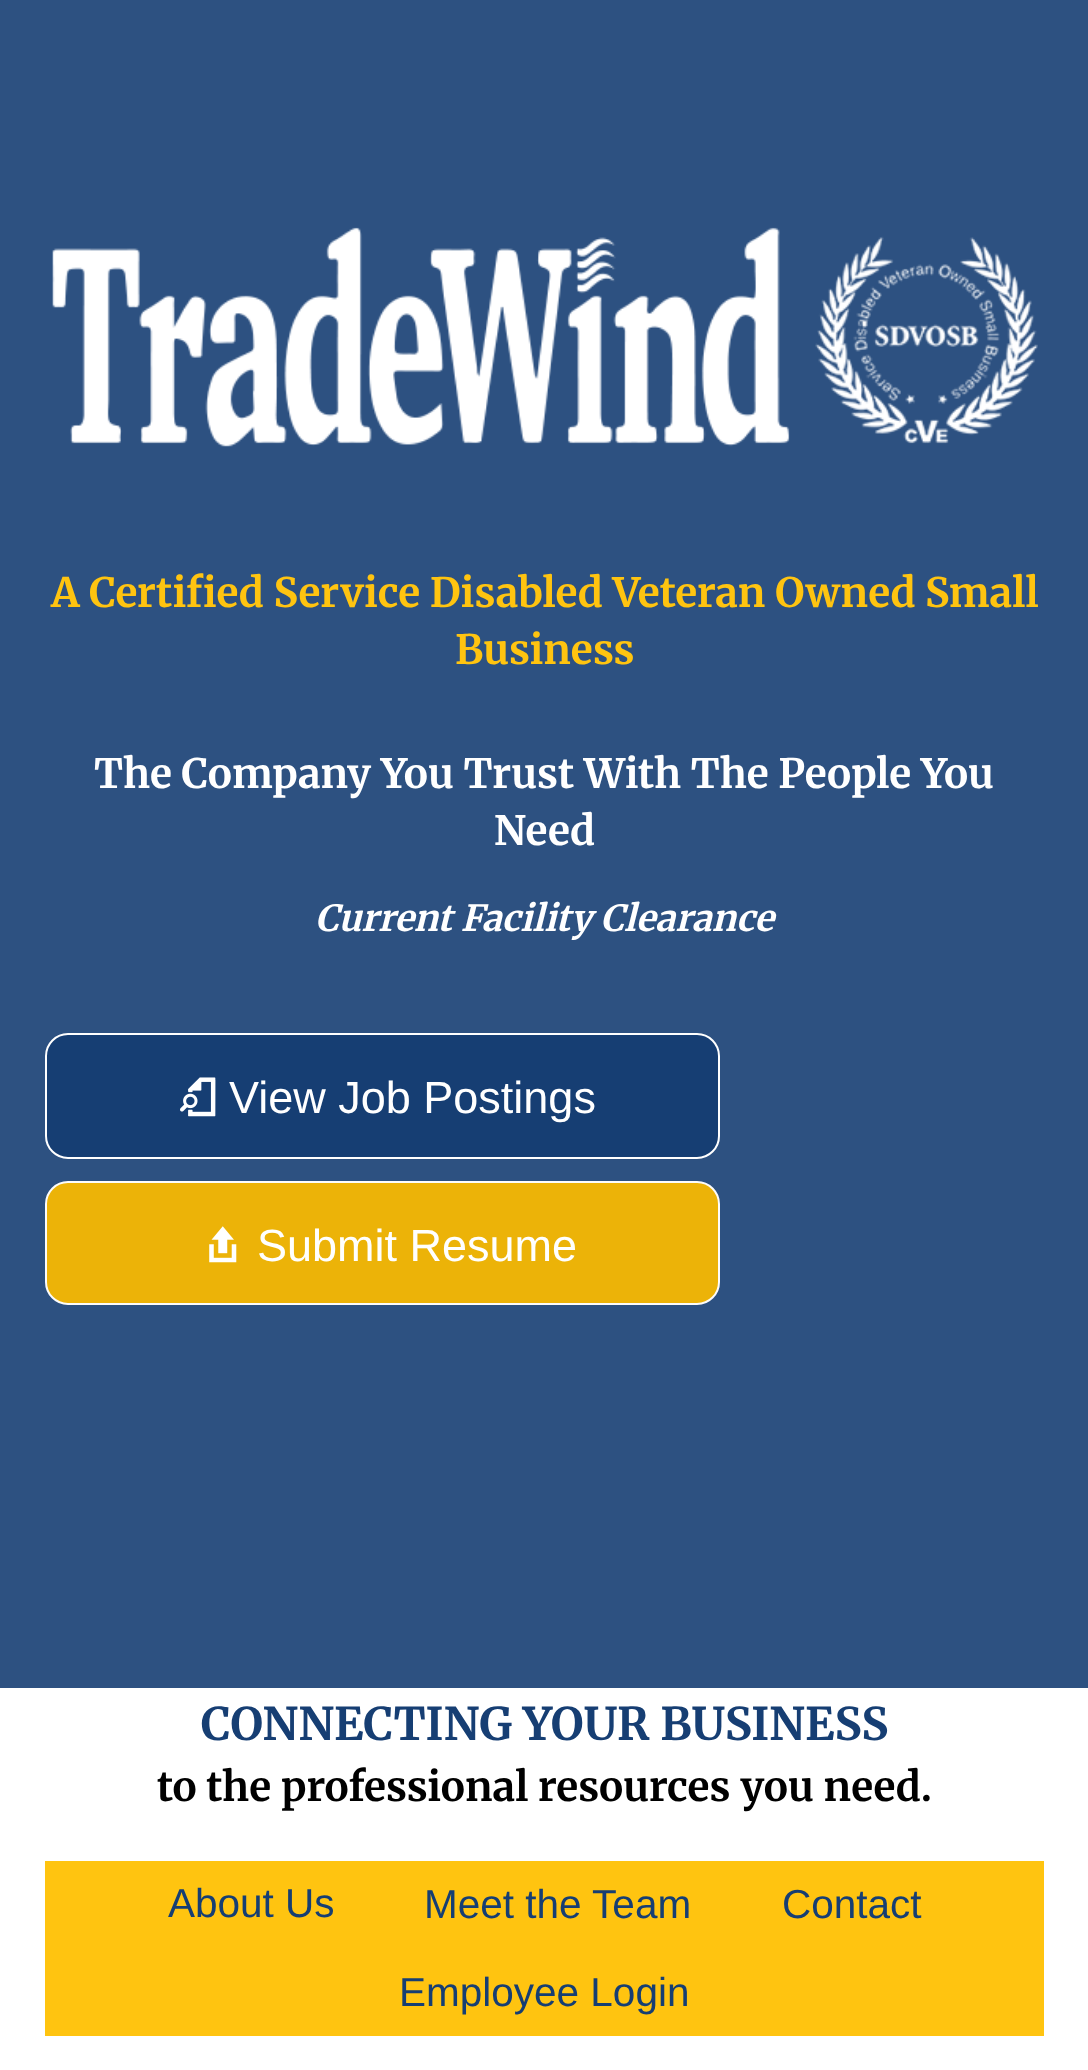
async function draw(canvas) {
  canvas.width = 1088
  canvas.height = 2070
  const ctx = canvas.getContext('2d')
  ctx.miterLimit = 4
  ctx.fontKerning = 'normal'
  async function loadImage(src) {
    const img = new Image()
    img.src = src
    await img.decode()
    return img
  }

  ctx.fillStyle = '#fff'
  ctx.fillRect(0, 0, 1088, 2070)
  ctx.fillStyle = '#2d5181'
  ctx.fillRect(0, 0, 1088, 1688)
  ctx.drawImage(await loadImage('image0.png'), 52, 227, 986, 220)
  ctx.font = '300 40.5px Merriweather'
  ctx.fillStyle = '#ffc410'
  ctx.fillText('A Certified Service Disabled Veteran Owned Small', 51, 607)
  ctx.fillText('Business', 455, 664)
  ctx.fillStyle = '#fff'
  ctx.fillText('The Company You Trust With The People You', 94, 788)
  ctx.fillText('Need', 494, 845)
  ctx.font = 'italic 300 36px Merriweather'
  ctx.fillText('Current Facility Clearance', 315, 931)
  ctx.fillStyle = '#163e73'
  ctx.beginPath()
  ctx.roundRect(46, 1034, 673, 124, 22)
  ctx.fill()
  ctx.strokeStyle = '#fff'
  ctx.lineWidth = 2
  ctx.stroke()
  ctx.drawImage(await loadImage('image1.png'), 180, 1077, 36, 40)
  ctx.font = '45px Liberation Sans'
  ctx.fillStyle = '#fff'
  ctx.fillText('View Job Postings', 229, 1113)
  ctx.fillStyle = '#ecb308'
  ctx.beginPath()
  ctx.roundRect(46, 1182, 673, 122, 22)
  ctx.fill()
  ctx.strokeStyle = '#fcfcfc'
  ctx.stroke()
  ctx.drawImage(await loadImage('image2.png'), 209, 1226, 28, 37)
  ctx.fillStyle = '#fff'
  ctx.fillText('Submit Resume', 257, 1261)
  ctx.font = '300 45px Merriweather'
  ctx.fillStyle = '#163e73'
  ctx.fillText('CONNECTING YOUR BUSINESS', 201, 1740)
  ctx.font = '300 40.5px Merriweather'
  ctx.fillStyle = '#000'
  ctx.fillText('to the professional resources you need.', 157, 1801)
  ctx.fillStyle = '#ffc410'
  ctx.fillRect(45, 1861, 999, 175)
  ctx.font = '40.5px Liberation Sans'
  ctx.fillStyle = '#163e73'
  ctx.fillText('About Us', 168, 1917)
  ctx.fillText('Meet the Team', 424, 1918)
  ctx.fillText('Contact', 782, 1918)
  ctx.fillText('Employee Login', 399, 2006)
}

draw(document.querySelector('canvas'))
